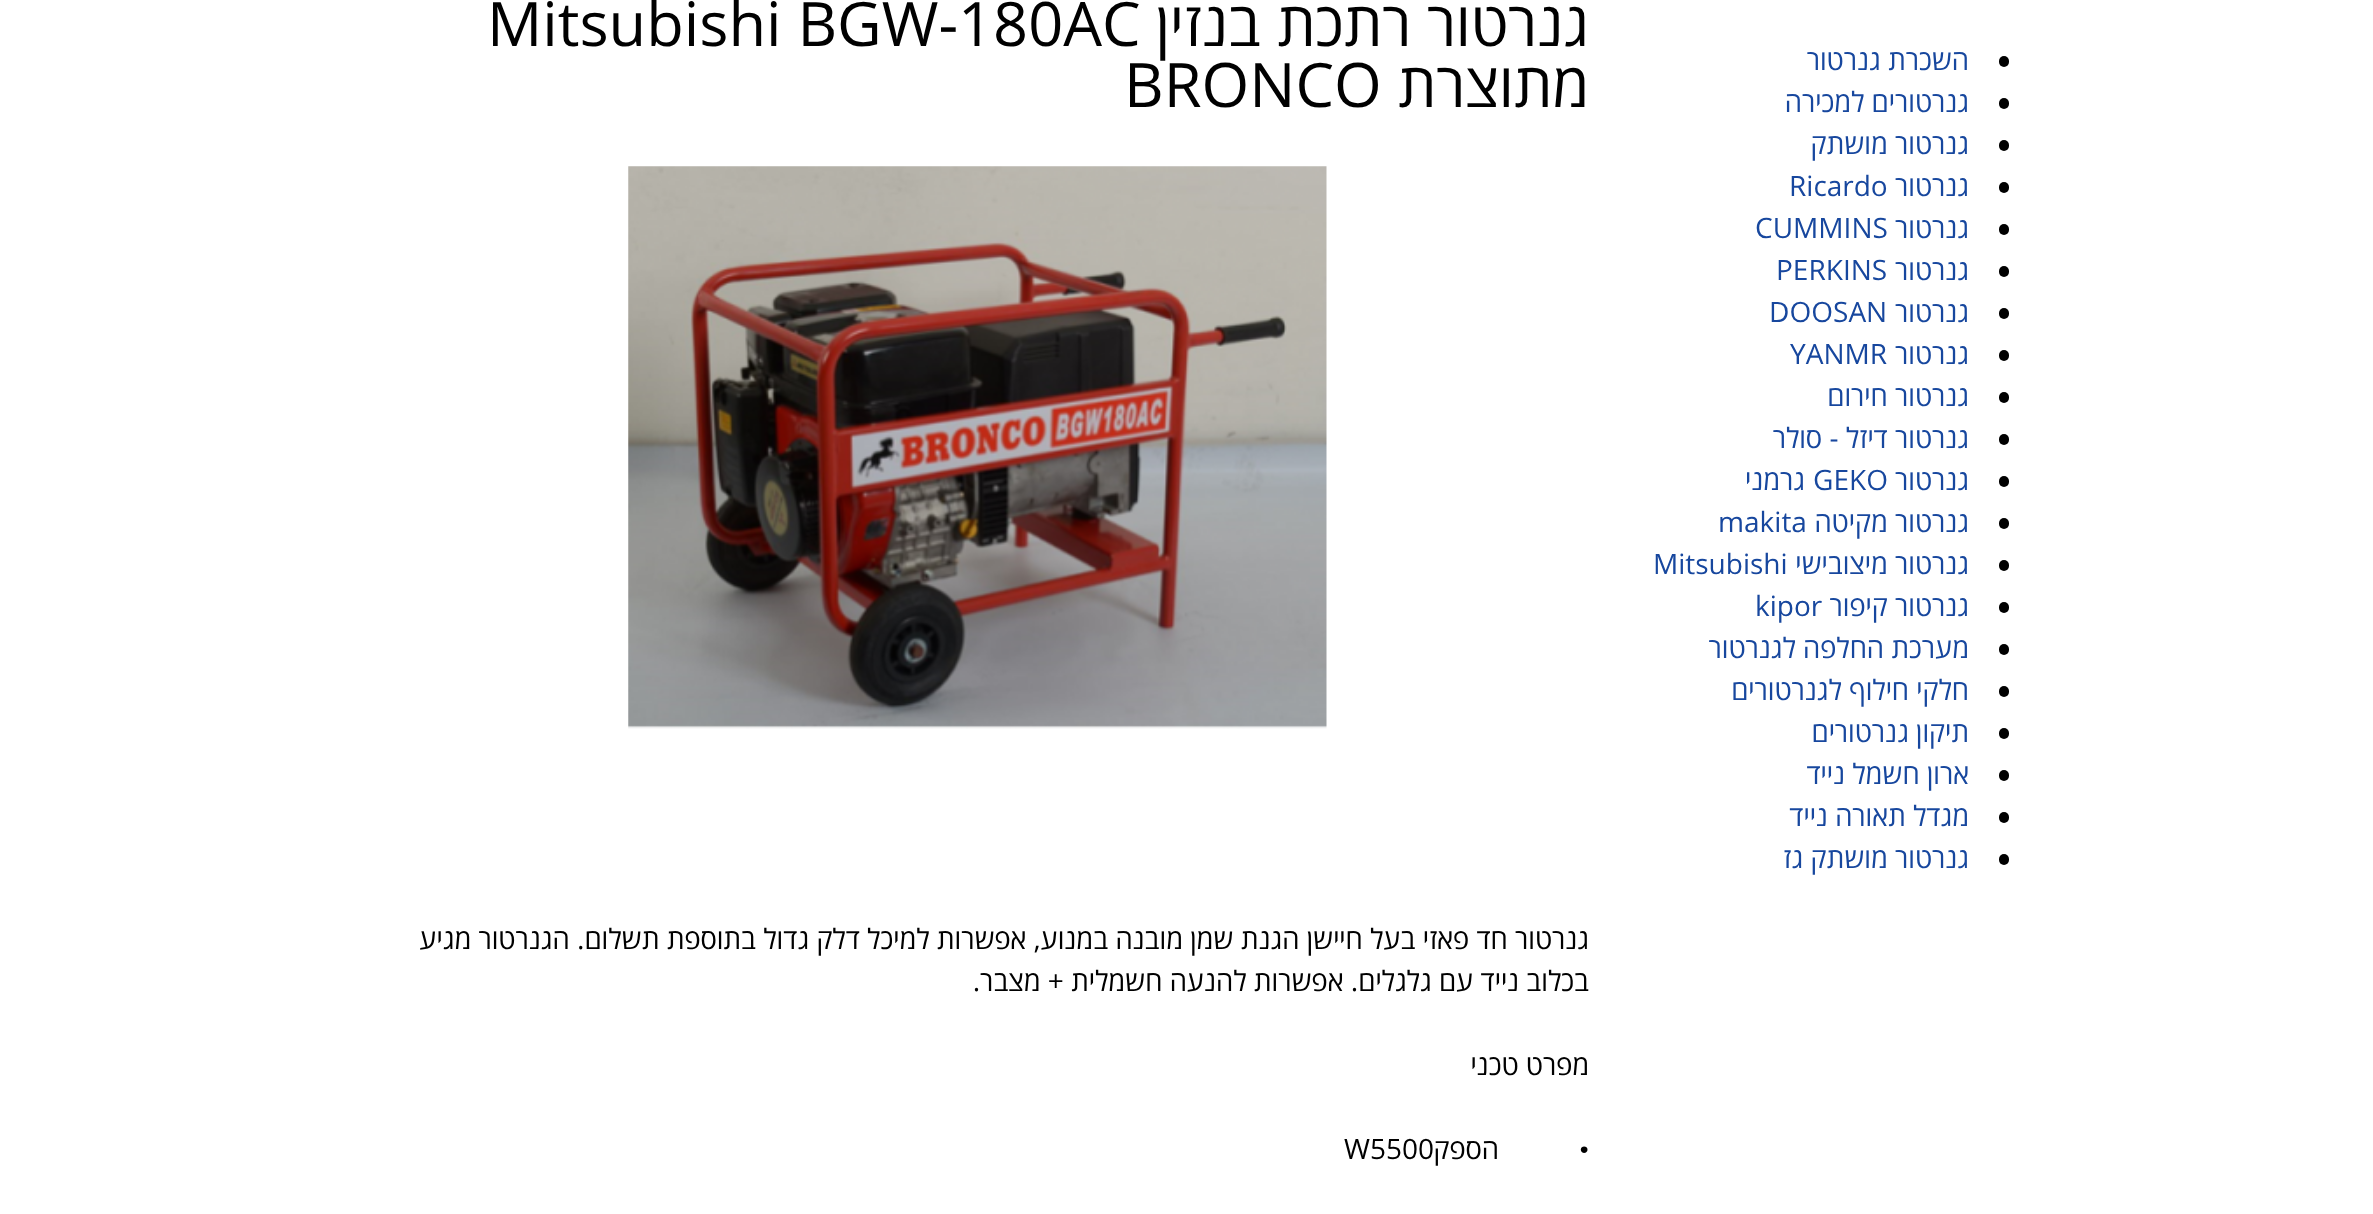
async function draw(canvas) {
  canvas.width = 2373
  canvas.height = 1214
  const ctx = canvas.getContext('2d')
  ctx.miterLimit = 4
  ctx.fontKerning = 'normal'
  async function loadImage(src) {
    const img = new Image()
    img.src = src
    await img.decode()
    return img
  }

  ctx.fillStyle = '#fff'
  ctx.fillRect(0, 0, 2373, 1214)
  ctx.fillStyle = '#000'
  ctx.beginPath()
  ctx.roundRect(1999, 56, 10, 11, 5)
  ctx.fill()
  ctx.direction = 'rtl'
  ctx.font = '28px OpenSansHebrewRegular'
  ctx.fillStyle = '#17479e'
  ctx.fillText('השכרת גנרטור', 1969, 70)
  ctx.fillStyle = '#000'
  ctx.beginPath()
  ctx.roundRect(1999, 98, 10, 11, 5)
  ctx.fill()
  ctx.fillStyle = '#17479e'
  ctx.fillText('גנרטורים למכירה', 1969, 112)
  ctx.fillStyle = '#000'
  ctx.beginPath()
  ctx.roundRect(1999, 140, 10, 11, 5)
  ctx.fill()
  ctx.fillStyle = '#17479e'
  ctx.fillText('גנרטור מושתק', 1969, 154)
  ctx.fillStyle = '#000'
  ctx.beginPath()
  ctx.roundRect(1999, 182, 10, 11, 5)
  ctx.fill()
  ctx.fillStyle = '#17479e'
  ctx.fillText('גנרטור', 1969, 196)
  ctx.direction = 'ltr'
  ctx.fillText('Ricardo', 1789, 196)
  ctx.fillStyle = '#000'
  ctx.beginPath()
  ctx.roundRect(1999, 224, 10, 11, 5)
  ctx.fill()
  ctx.direction = 'rtl'
  ctx.fillStyle = '#17479e'
  ctx.fillText('גנרטור', 1969, 238)
  ctx.direction = 'ltr'
  ctx.fillText('CUMMINS', 1755, 238)
  ctx.fillStyle = '#000'
  ctx.beginPath()
  ctx.roundRect(1999, 266, 10, 11, 5)
  ctx.fill()
  ctx.direction = 'rtl'
  ctx.fillStyle = '#17479e'
  ctx.fillText('גנרטור', 1969, 280)
  ctx.direction = 'ltr'
  ctx.fillText('PERKINS', 1776, 280)
  ctx.fillStyle = '#000'
  ctx.beginPath()
  ctx.roundRect(1999, 308, 10, 11, 5)
  ctx.fill()
  ctx.direction = 'rtl'
  ctx.fillStyle = '#17479e'
  ctx.fillText('גנרטור', 1969, 322)
  ctx.direction = 'ltr'
  ctx.fillText('DOOSAN', 1769, 322)
  ctx.fillStyle = '#000'
  ctx.beginPath()
  ctx.roundRect(1999, 350, 10, 11, 5)
  ctx.fill()
  ctx.direction = 'rtl'
  ctx.fillStyle = '#17479e'
  ctx.fillText('גנרטור', 1969, 364)
  ctx.direction = 'ltr'
  ctx.fillText('YANMR', 1790, 364)
  ctx.fillStyle = '#000'
  ctx.beginPath()
  ctx.roundRect(1999, 392, 10, 11, 5)
  ctx.fill()
  ctx.direction = 'rtl'
  ctx.fillStyle = '#17479e'
  ctx.fillText('גנרטור חירום', 1969, 406)
  ctx.fillStyle = '#000'
  ctx.beginPath()
  ctx.roundRect(1999, 434, 10, 11, 5)
  ctx.fill()
  ctx.fillStyle = '#17479e'
  ctx.fillText('גנרטור דיזל - סולר', 1969, 448)
  ctx.fillStyle = '#000'
  ctx.beginPath()
  ctx.roundRect(1999, 476, 10, 11, 5)
  ctx.fill()
  ctx.fillStyle = '#17479e'
  ctx.fillText('גנרטור', 1969, 490)
  ctx.direction = 'ltr'
  ctx.fillText('GEKO', 1813, 490)
  ctx.direction = 'rtl'
  ctx.fillText('גרמני', 1805, 490)
  ctx.fillStyle = '#000'
  ctx.beginPath()
  ctx.roundRect(1999, 518, 10, 11, 5)
  ctx.fill()
  ctx.fillStyle = '#17479e'
  ctx.fillText('גנרטור מקיטה', 1969, 532)
  ctx.direction = 'ltr'
  ctx.fillText('makita', 1718, 532)
  ctx.fillStyle = '#000'
  ctx.beginPath()
  ctx.roundRect(1999, 560, 10, 11, 5)
  ctx.fill()
  ctx.direction = 'rtl'
  ctx.fillStyle = '#17479e'
  ctx.fillText('גנרטור מיצובישי', 1969, 574)
  ctx.direction = 'ltr'
  ctx.fillText('Mitsubishi', 1653, 574)
  ctx.fillStyle = '#000'
  ctx.beginPath()
  ctx.roundRect(1999, 602, 10, 11, 5)
  ctx.fill()
  ctx.direction = 'rtl'
  ctx.fillStyle = '#17479e'
  ctx.fillText('גנרטור קיפור', 1969, 616)
  ctx.direction = 'ltr'
  ctx.fillText('kipor', 1755, 616)
  ctx.fillStyle = '#000'
  ctx.beginPath()
  ctx.roundRect(1999, 644, 10, 11, 5)
  ctx.fill()
  ctx.direction = 'rtl'
  ctx.fillStyle = '#17479e'
  ctx.fillText('מערכת החלפה לגנרטור', 1969, 658)
  ctx.fillStyle = '#000'
  ctx.beginPath()
  ctx.roundRect(1999, 686, 10, 11, 5)
  ctx.fill()
  ctx.fillStyle = '#17479e'
  ctx.fillText('חלקי חילוף לגנרטורים', 1969, 700)
  ctx.fillStyle = '#000'
  ctx.beginPath()
  ctx.roundRect(1999, 728, 10, 11, 5)
  ctx.fill()
  ctx.fillStyle = '#17479e'
  ctx.fillText('תיקון גנרטורים', 1969, 742)
  ctx.fillStyle = '#000'
  ctx.beginPath()
  ctx.roundRect(1999, 770, 10, 11, 5)
  ctx.fill()
  ctx.fillStyle = '#17479e'
  ctx.fillText('ארון חשמל נייד', 1969, 784)
  ctx.fillStyle = '#000'
  ctx.beginPath()
  ctx.roundRect(1999, 812, 10, 11, 5)
  ctx.fill()
  ctx.fillStyle = '#17479e'
  ctx.fillText('מגדל תאורה נייד', 1969, 826)
  ctx.fillStyle = '#000'
  ctx.beginPath()
  ctx.roundRect(1999, 854, 10, 11, 5)
  ctx.fill()
  ctx.fillStyle = '#17479e'
  ctx.fillText('גנרטור מושתק גז', 1969, 868)
  ctx.font = '61.25px OpenSansHebrewRegular'
  ctx.fillStyle = '#000'
  ctx.fillText('גנרטור רתכת בנזין', 1589, 46)
  ctx.direction = 'ltr'
  ctx.fillText('Mitsubishi BGW-180AC', 487, 46)
  ctx.direction = 'rtl'
  ctx.fillText('מתוצרת', 1589, 107)
  ctx.direction = 'ltr'
  ctx.fillText('BRONCO', 1124, 107)
  ctx.drawImage(await loadImage('image0.png'), 628, 166, 699, 563)
  ctx.direction = 'rtl'
  ctx.font = '28px OpenSansHebrewRegular'
  ctx.fillText('גנרטור חד פאזי בעל חיישן הגנת שמן מובנה במנוע, אפשרות למיכל דלק גדול בתוספת תשלום. הגנרטור מגיע', 1589, 949)
  ctx.fillText('בכלוב נייד עם גלגלים. אפשרות להנעה חשמלית + מצבר.', 1589, 991)
  ctx.fillText('מפרט טכני', 1589, 1075)
  ctx.font = '28px Liberation Serif'
  ctx.fillText('•', 1589, 1159)
  ctx.font = '28px OpenSansHebrewRegular'
  ctx.fillText('הספק', 1499, 1159)
  ctx.direction = 'ltr'
  ctx.fillText('5500', 1370, 1159)
  ctx.fillText('W', 1344, 1159)
}

draw(document.querySelector('canvas'))
